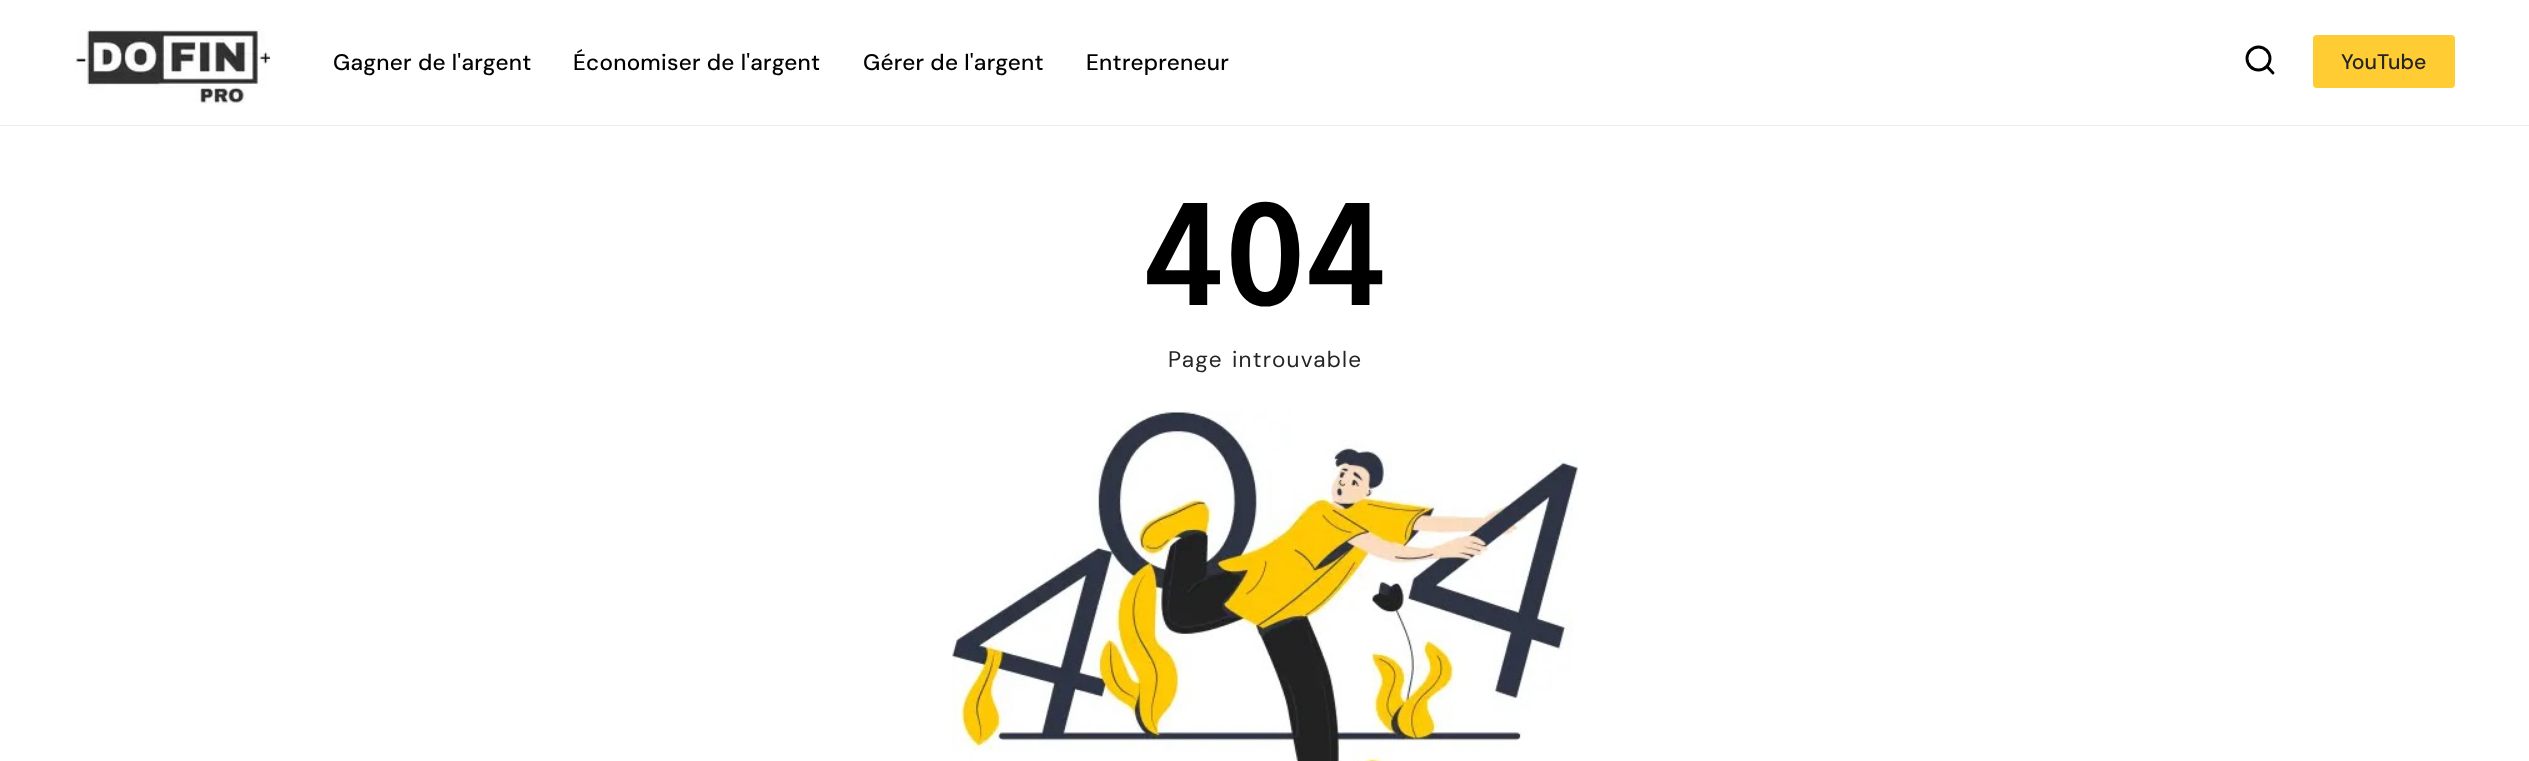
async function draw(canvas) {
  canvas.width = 2529
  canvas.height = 761
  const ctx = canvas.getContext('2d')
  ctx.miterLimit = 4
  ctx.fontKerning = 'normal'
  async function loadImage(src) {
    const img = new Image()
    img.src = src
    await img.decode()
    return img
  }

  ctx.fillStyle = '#fff'
  ctx.fillRect(0, 0, 2529, 761)
  ctx.fillStyle = '#e7edf1'
  ctx.fillRect(0, 125, 2529, 1)
  ctx.letterSpacing = '0.25px'
  ctx.font = '500 22.5px DM Sans'
  ctx.fillStyle = '#000'
  ctx.fillText('Gagner de l\'argent', 333, 70)
  ctx.fillText('Économiser de l\'argent', 573, 70)
  ctx.fillText('Gérer de l\'argent', 863, 70)
  ctx.fillText('Entrepreneur', 1086, 70)
  ctx.drawImage(await loadImage('image0.png'), 75, 29, 195, 76)
  ctx.beginPath()
  ctx.arc(2258.5, 58.5, 11.5, 0, 2 * Math.PI)
  ctx.strokeStyle = '#000'
  ctx.lineWidth = 2.9
  ctx.stroke()
  ctx.beginPath()
  ctx.moveTo(2273, 73)
  ctx.lineTo(2267, 66.5)
  ctx.lineCap = 'round'
  ctx.lineJoin = 'round'
  ctx.stroke()
  ctx.fillStyle = '#fc3'
  ctx.beginPath()
  ctx.roundRect(2313, 35, 142, 53, 4)
  ctx.fill()
  ctx.letterSpacing = '0px'
  ctx.font = '500 21.25px DM Sans'
  ctx.fillStyle = '#252525'
  ctx.fillText('YouTube', 2341, 69)
  ctx.font = '600 138px Epilogue'
  ctx.fillStyle = '#000'
  ctx.fillText('404', 1144, 305)
  ctx.letterSpacing = '1.25px'
  ctx.wordSpacing = '2px'
  ctx.font = '22.5px DM Sans'
  ctx.fillStyle = '#252525'
  ctx.fillText('Page introuvable', 1168, 367)
  ctx.drawImage(await loadImage('image1.png'), 952, 410, 626, 351)
}

draw(document.querySelector('canvas'))
